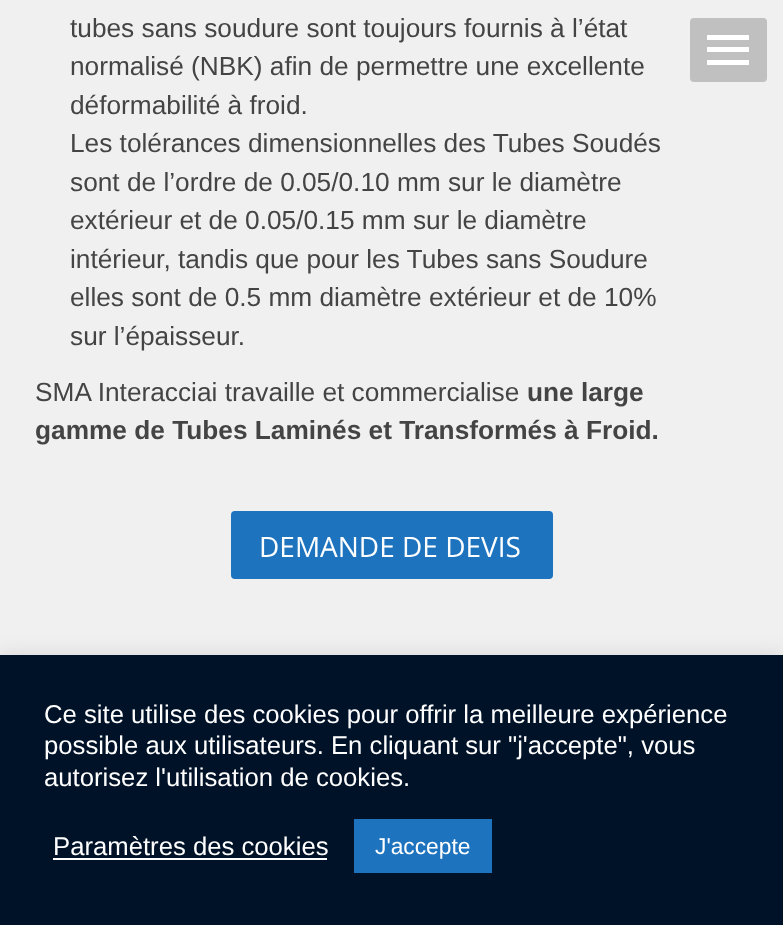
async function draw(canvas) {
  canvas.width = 783
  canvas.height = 925
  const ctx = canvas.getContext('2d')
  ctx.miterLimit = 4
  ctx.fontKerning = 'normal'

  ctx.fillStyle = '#f0f0f0'
  ctx.fillRect(0, 0, 783, 925)
  ctx.font = '26.25px Liberation Sans'
  ctx.fillStyle = '#444'
  ctx.fillText('tubes sans soudure sont toujours fournis à l’état', 70, 37)
  ctx.fillText('normalisé (NBK) afin de permettre une excellente', 70, 75)
  ctx.fillText('déformabilité à froid.', 70, 114)
  ctx.fillText('Les tolérances dimensionnelles des Tubes Soudés', 70, 152)
  ctx.fillText('sont de l’ordre de 0.05/0.10 mm sur le diamètre', 70, 191)
  ctx.fillText('extérieur et de 0.05/0.15 mm sur le diamètre', 70, 229)
  ctx.fillText('intérieur, tandis que pour les Tubes sans Soudure', 70, 268)
  ctx.fillText('elles sont de 0.5 mm diamètre extérieur et de 10%', 70, 306)
  ctx.fillText('sur l’épaisseur.', 70, 345)
  ctx.fillText('SMA Interacciai travaille et commercialise', 35, 401)
  ctx.font = 'bold 26.25px Liberation Sans'
  ctx.fillText('une large', 527, 401)
  ctx.fillText('gamme de Tubes Laminés et Transformés à Froid.', 35, 439)
  ctx.fillStyle = '#1e73be'
  ctx.beginPath()
  ctx.roundRect(231, 511, 322, 68, 4)
  ctx.fill()
  ctx.font = '28px Open Sans'
  ctx.fillStyle = '#fff'
  ctx.fillText('DEMANDE DE DEVIS', 259, 557)
  ctx.fillStyle = '#c0c0c0'
  ctx.beginPath()
  ctx.roundRect(690, 18, 77, 64, 4)
  ctx.fill()
  ctx.fillStyle = '#fff'
  ctx.fillRect(707, 35, 42, 5)
  ctx.fillRect(707, 47, 42, 5)
  ctx.fillRect(707, 60, 42, 5)
  ctx.fillStyle = '#acabab4d'
  ctx.filter = 'blur(9px)'
  ctx.beginPath()
  ctx.rect(0, 653, 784, 271)
  ctx.fill()
  ctx.filter = 'none'
  ctx.fillStyle = '#001228'
  ctx.fillRect(0, 655, 783, 270)
  ctx.font = '25.7px Liberation Sans'
  ctx.fillStyle = '#fff'
  ctx.fillText('Ce site utilise des cookies pour offrir la meilleure expérience', 44, 723)
  ctx.fillText('possible aux utilisateurs. En cliquant sur "j\'accepte", vous', 44, 754)
  ctx.fillText('autorisez l\'utilisation de cookies.', 44, 786)
  ctx.fillText('Paramètres des cookies', 53, 855)
  ctx.fillRect(53, 858, 274, 2)
  ctx.fillStyle = '#1e73be'
  ctx.fillRect(354, 819, 138, 54)
  ctx.font = '22.75px Liberation Sans'
  ctx.fillStyle = '#fff'
  ctx.fillText('J\'accepte', 375, 854)
}

draw(document.querySelector('canvas'))
